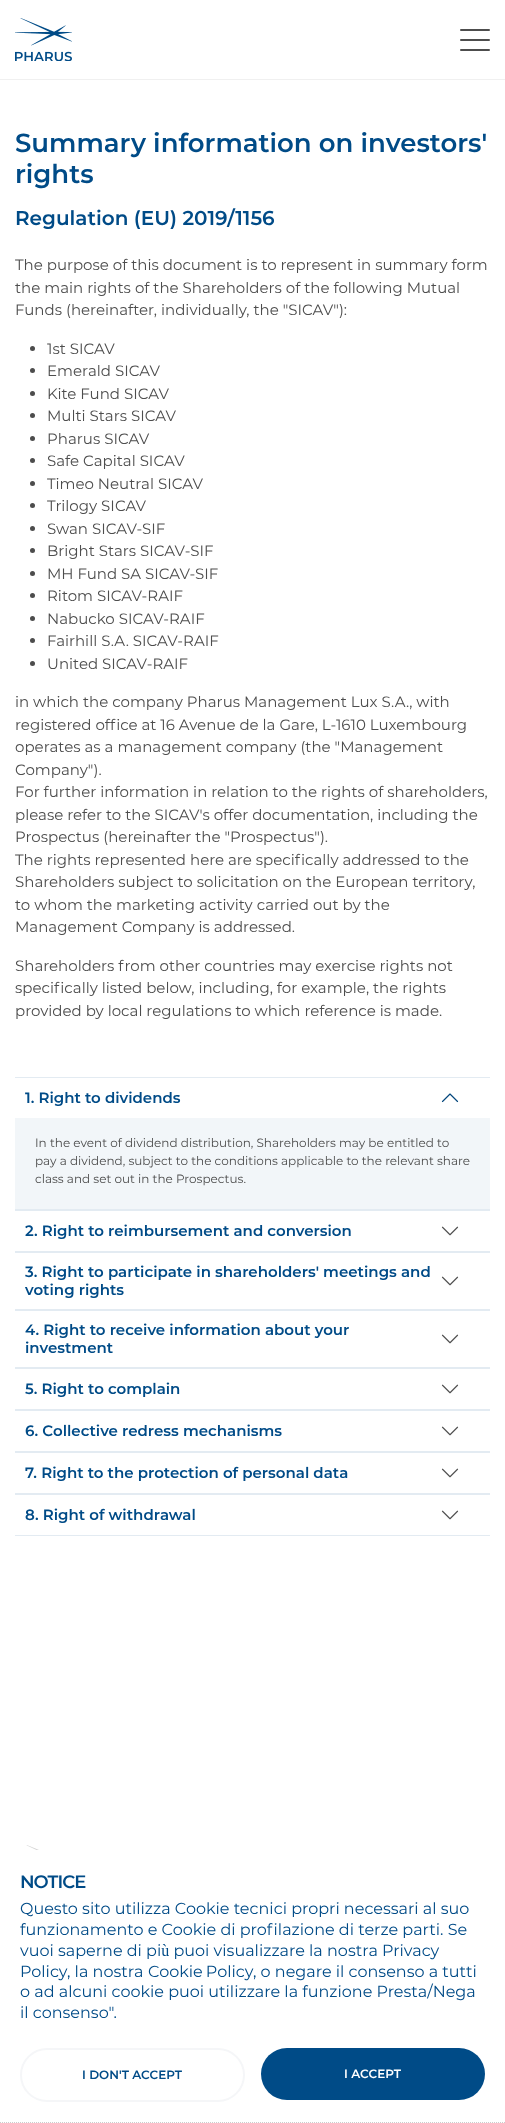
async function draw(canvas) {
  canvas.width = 505
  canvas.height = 2123
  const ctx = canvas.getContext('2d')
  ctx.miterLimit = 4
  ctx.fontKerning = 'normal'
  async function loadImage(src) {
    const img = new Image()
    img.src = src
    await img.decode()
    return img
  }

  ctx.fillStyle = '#fff'
  ctx.fillRect(0, 0, 505, 2123)
  ctx.fillStyle = '#f0f0f0'
  ctx.fillRect(0, 79, 505, 1)
  ctx.drawImage(await loadImage('image0.png'), 15, 18, 57, 43)
  ctx.fillStyle = '#4d4d4d'
  ctx.beginPath()
  ctx.roundRect(460, 29, 30, 2, 1)
  ctx.fill()
  ctx.beginPath()
  ctx.roundRect(460, 39, 30, 2, 1)
  ctx.fill()
  ctx.beginPath()
  ctx.roundRect(460, 49, 30, 2, 1)
  ctx.fill()
  ctx.font = '600 26px Montserrat'
  ctx.fillStyle = '#004b87'
  ctx.fillText('Summary information on investors\'', 15, 152)
  ctx.fillText('rights', 15, 183)
  ctx.font = '600 20px Montserrat'
  ctx.fillText('Regulation (EU) 2019/1156', 15, 225)
  ctx.font = '15px Montserrat'
  ctx.fillStyle = '#4d4d4d'
  ctx.fillText('The purpose of this document is to represent in summary form', 15, 270)
  ctx.fillText('the main rights of the Shareholders of the following Mutual', 15, 293)
  ctx.fillText('Funds (hereinafter, individually, the "SICAV"):', 15, 315)
  ctx.beginPath()
  ctx.arc(32.5, 348.5, 2.5, 0, 2 * Math.PI)
  ctx.fill()
  ctx.fillText('1st SICAV', 47, 354)
  ctx.beginPath()
  ctx.arc(32.5, 370.5, 2.5, 0, 2 * Math.PI)
  ctx.fill()
  ctx.fillText('Emerald SICAV', 47, 376)
  ctx.beginPath()
  ctx.arc(32.5, 393.5, 2.5, 0, 2 * Math.PI)
  ctx.fill()
  ctx.fillText('Kite Fund SICAV', 47, 399)
  ctx.beginPath()
  ctx.arc(32.5, 415.5, 2.5, 0, 2 * Math.PI)
  ctx.fill()
  ctx.fillText('Multi Stars SICAV', 47, 421)
  ctx.beginPath()
  ctx.arc(32.5, 438.5, 2.5, 0, 2 * Math.PI)
  ctx.fill()
  ctx.fillText('Pharus SICAV', 47, 444)
  ctx.beginPath()
  ctx.arc(32.5, 460.5, 2.5, 0, 2 * Math.PI)
  ctx.fill()
  ctx.fillText('Safe Capital SICAV', 47, 466)
  ctx.beginPath()
  ctx.arc(32.5, 483.5, 2.5, 0, 2 * Math.PI)
  ctx.fill()
  ctx.fillText('Timeo Neutral SICAV', 47, 489)
  ctx.beginPath()
  ctx.arc(32.5, 505.5, 2.5, 0, 2 * Math.PI)
  ctx.fill()
  ctx.fillText('Trilogy SICAV', 47, 511)
  ctx.beginPath()
  ctx.arc(32.5, 528.5, 2.5, 0, 2 * Math.PI)
  ctx.fill()
  ctx.fillText('Swan SICAV-SIF', 47, 534)
  ctx.beginPath()
  ctx.arc(32.5, 550.5, 2.5, 0, 2 * Math.PI)
  ctx.fill()
  ctx.fillText('Bright Stars SICAV-SIF', 47, 556)
  ctx.beginPath()
  ctx.arc(32.5, 573.5, 2.5, 0, 2 * Math.PI)
  ctx.fill()
  ctx.fillText('MH Fund SA SICAV-SIF', 47, 579)
  ctx.beginPath()
  ctx.arc(32.5, 595.5, 2.5, 0, 2 * Math.PI)
  ctx.fill()
  ctx.fillText('Ritom SICAV-RAIF', 47, 601)
  ctx.beginPath()
  ctx.arc(32.5, 618.5, 2.5, 0, 2 * Math.PI)
  ctx.fill()
  ctx.fillText('Nabucko SICAV-RAIF', 47, 624)
  ctx.beginPath()
  ctx.arc(32.5, 640.5, 2.5, 0, 2 * Math.PI)
  ctx.fill()
  ctx.fillText('Fairhill S.A. SICAV-RAIF', 47, 646)
  ctx.beginPath()
  ctx.arc(32.5, 663.5, 2.5, 0, 2 * Math.PI)
  ctx.fill()
  ctx.fillText('United SICAV-RAIF', 47, 669)
  ctx.fillText('in which the company Pharus Management Lux S.A., with', 15, 707)
  ctx.fillText('registered office at 16 Avenue de la Gare, L-1610 Luxembourg', 15, 730)
  ctx.fillText('operates as a management company (the "Management', 15, 752)
  ctx.fillText('Company").', 15, 775)
  ctx.fillText('For further information in relation to the rights of shareholders,', 15, 797)
  ctx.fillText('please refer to the SICAV\'s offer documentation, including the', 15, 820)
  ctx.fillText('Prospectus (hereinafter the "Prospectus").', 15, 842)
  ctx.fillText('The rights represented here are specifically addressed to the', 15, 865)
  ctx.fillText('Shareholders subject to solicitation on the European territory,', 15, 887)
  ctx.fillText('to whom the marketing activity carried out by the', 15, 910)
  ctx.fillText('Management Company is addressed.', 15, 932)
  ctx.fillText('Shareholders from other countries may exercise rights not', 15, 971)
  ctx.fillText('specifically listed below, including, for example, the rights', 15, 993)
  ctx.fillText('provided by local regulations to which reference is made.', 15, 1016)
  ctx.fillStyle = '#e3ebf2'
  ctx.fillRect(15, 1209, 475, 2)
  ctx.fillRect(15, 1077, 475, 1)
  ctx.font = '600 15px Montserrat'
  ctx.fillStyle = '#004b87'
  ctx.fillText('1. Right to dividends', 25, 1103)
  ctx.drawImage(await loadImage('image1.png'), 441, 1093, 18, 10)
  ctx.fillStyle = '#f2f6f9'
  ctx.fillRect(15, 1118, 475, 91)
  ctx.font = '12px Montserrat'
  ctx.fillStyle = '#4d4d4d'
  ctx.fillText('In the event of dividend distribution, Shareholders may be entitled to', 35, 1147)
  ctx.fillText('pay a dividend, subject to the conditions applicable to the relevant share', 35, 1165)
  ctx.fillText('class and set out in the Prospectus.', 35, 1183)
  ctx.fillStyle = '#e3ebf2'
  ctx.fillRect(15, 1251, 475, 2)
  ctx.font = '600 15px Montserrat'
  ctx.fillStyle = '#004b87'
  ctx.fillText('2. Right to reimbursement and conversion', 25, 1236)
  ctx.drawImage(await loadImage('image2.png'), 441, 1226, 18, 10)
  ctx.fillStyle = '#e3ebf2'
  ctx.fillRect(15, 1309, 475, 2)
  ctx.fillStyle = '#004b87'
  ctx.fillText('3. Right to participate in shareholders\' meetings and', 25, 1277)
  ctx.drawImage(await loadImage('image2.png'), 441, 1276, 18, 10)
  ctx.fillText('voting rights', 25, 1295)
  ctx.fillStyle = '#e3ebf2'
  ctx.fillRect(15, 1367, 475, 2)
  ctx.fillStyle = '#004b87'
  ctx.fillText('4. Right to receive information about your', 25, 1335)
  ctx.drawImage(await loadImage('image2.png'), 441, 1334, 18, 10)
  ctx.fillText('investment', 25, 1353)
  ctx.fillStyle = '#e3ebf2'
  ctx.fillRect(15, 1409, 475, 2)
  ctx.fillStyle = '#004b87'
  ctx.fillText('5. Right to complain', 25, 1394)
  ctx.drawImage(await loadImage('image2.png'), 441, 1384, 18, 10)
  ctx.fillStyle = '#e3ebf2'
  ctx.fillRect(15, 1451, 475, 2)
  ctx.fillStyle = '#004b87'
  ctx.fillText('6. Collective redress mechanisms', 25, 1436)
  ctx.drawImage(await loadImage('image2.png'), 441, 1426, 18, 10)
  ctx.fillStyle = '#e3ebf2'
  ctx.fillRect(15, 1493, 475, 2)
  ctx.fillStyle = '#004b87'
  ctx.fillText('7. Right to the protection of personal data', 25, 1478)
  ctx.drawImage(await loadImage('image2.png'), 441, 1468, 18, 10)
  ctx.fillStyle = '#e3ebf2'
  ctx.fillRect(15, 1535, 475, 1)
  ctx.fillStyle = '#004b87'
  ctx.fillText('8. Right of withdrawal', 25, 1520)
  ctx.drawImage(await loadImage('image2.png'), 441, 1510, 18, 10)
  ctx.drawImage(await loadImage('image3.png'), 26, 1845, 13, 5)
  ctx.beginPath()
  ctx.moveTo(0, 2122.5)
  ctx.lineTo(505, 2122.5)
  ctx.strokeStyle = '#ccc'
  ctx.setLineDash([1, 1])
  ctx.stroke()
  ctx.letterSpacing = '-1px'
  ctx.font = '600 18px Montserrat'
  ctx.fillText('NOTICE', 20, 1888)
  ctx.letterSpacing = '0px'
  ctx.font = '16px Montserrat'
  ctx.fillText('Questo sito utilizza Cookie tecnici propri necessari al suo', 20, 1914)
  ctx.fillText('funzionamento e Cookie di profilazione di terze parti. Se', 20, 1935)
  ctx.fillText('vuoi saperne di più puoi visualizzare la nostra Privacy', 20, 1956)
  ctx.fillText('Policy', 20, 1977)
  ctx.fillText(', la nostra', 67, 1977)
  ctx.wordSpacing = '-1px'
  ctx.fillText('Cookie Policy', 148, 1977)
  ctx.wordSpacing = '0px'
  ctx.fillText(', o negare il consenso a tutti', 253, 1977)
  ctx.fillText('o ad alcuni cookie puoi utilizzare la funzione Presta/Nega', 20, 1997)
  ctx.fillText('il consenso".', 20, 2018)
  ctx.beginPath()
  ctx.roundRect(21, 2049, 223, 52, 26)
  ctx.strokeStyle = '#f5f6f8'
  ctx.lineWidth = 2
  ctx.setLineDash([])
  ctx.stroke()
  ctx.font = '600 12px Montserrat'
  ctx.fillText('I DON\'T ACCEPT', 82, 2079)
  ctx.beginPath()
  ctx.roundRect(261, 2048, 224, 52, 26)
  ctx.fill()
  ctx.fillStyle = '#fff'
  ctx.fillText('I ACCEPT', 344, 2078)
}

draw(document.querySelector('canvas'))
